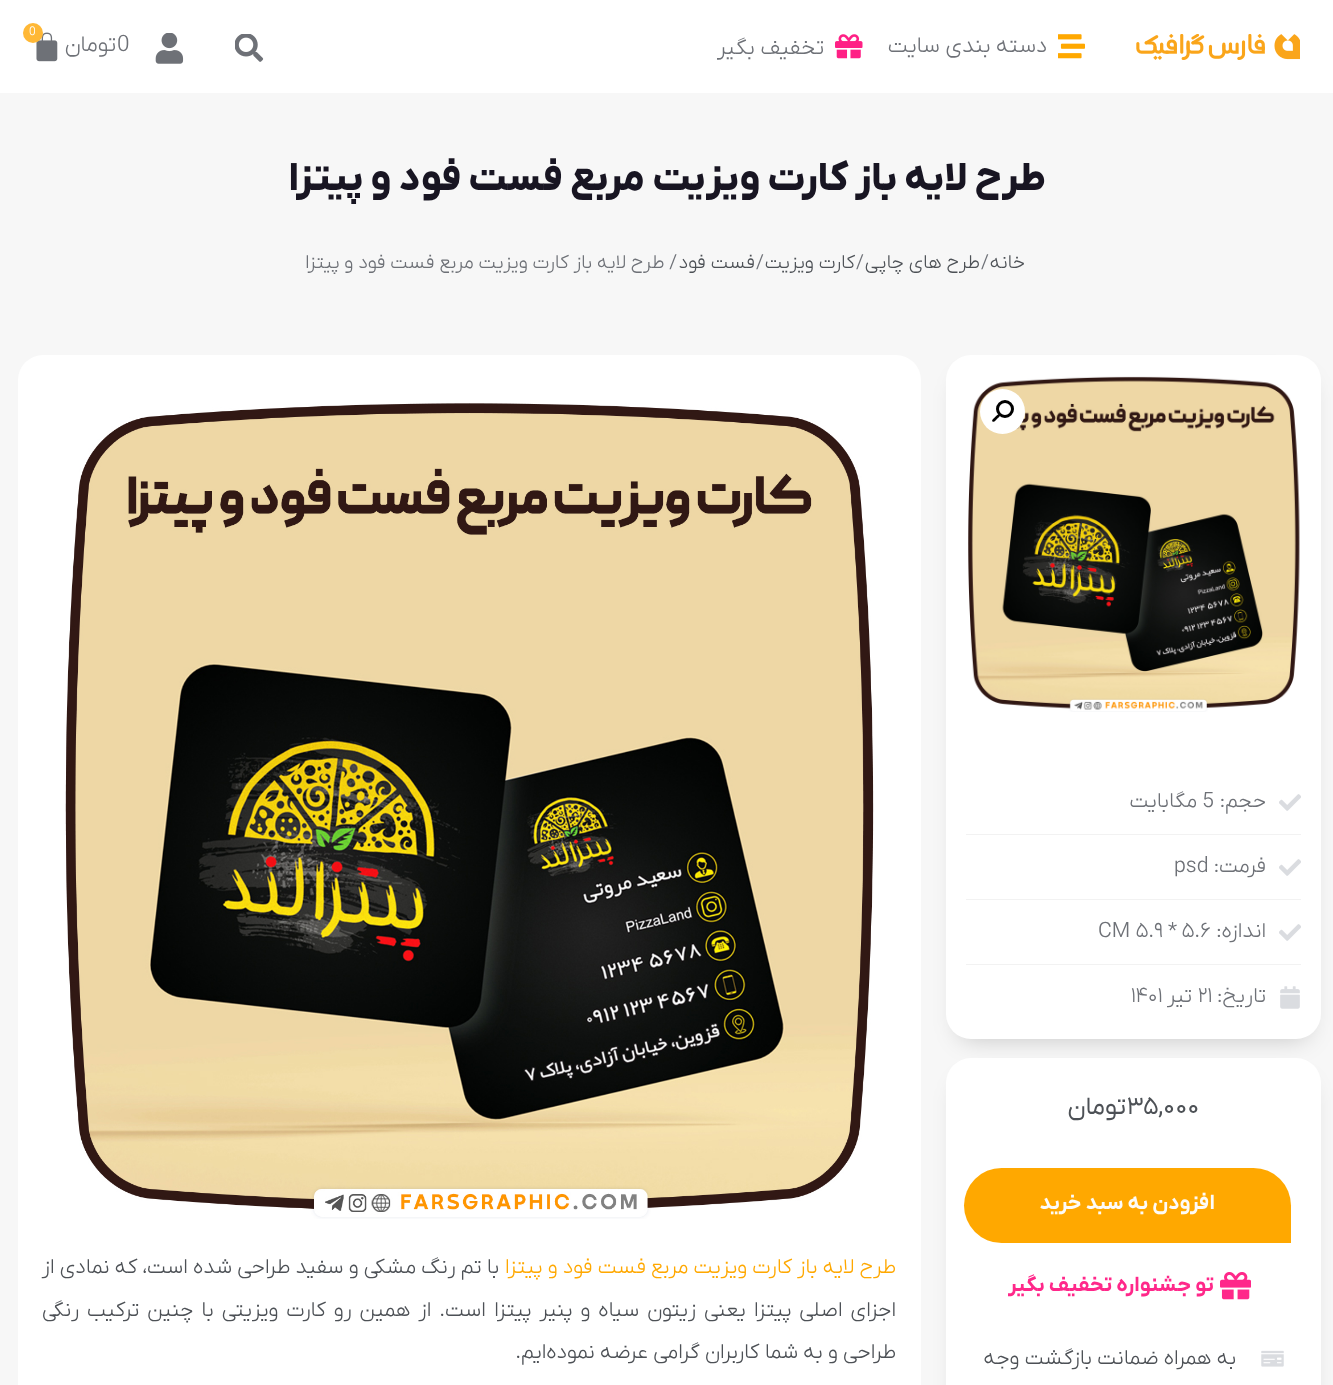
async function draw(canvas) {
  canvas.width = 1333
  canvas.height = 1385
  const ctx = canvas.getContext('2d')
  ctx.miterLimit = 4
  ctx.fontKerning = 'normal'
  async function loadImage(src) {
    const img = new Image()
    img.src = src
    await img.decode()
    return img
  }

  ctx.fillStyle = '#f7f7f7'
  ctx.fillRect(0, 0, 1333, 1385)
  ctx.fillStyle = '#fff'
  ctx.fillRect(0, 0, 1333, 93)
  ctx.drawImage(await loadImage('image0.png'), 1136, 34, 164, 26)
  ctx.drawImage(await loadImage('image1.png'), 1058, 34, 27, 25)
  ctx.direction = 'rtl'
  ctx.font = '300 22.5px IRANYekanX'
  ctx.fillStyle = '#6e7177'
  ctx.fillText('دسته بندی سایت', 1047, 52)
  ctx.drawImage(await loadImage('image2.png'), 835, 34, 28, 25)
  ctx.fillText('تخفیف بگیر', 824, 54)
  ctx.drawImage(await loadImage('image3.png'), 235, 34, 29, 28)
  ctx.drawImage(await loadImage('image4.png'), 155, 33, 29, 31)
  ctx.drawImage(await loadImage('image5.png'), 36, 32, 22, 30)
  ctx.fillStyle = '#ffb836'
  ctx.beginPath()
  ctx.arc(33, 33, 10, 0, 2 * Math.PI)
  ctx.fill()
  ctx.direction = 'ltr'
  ctx.font = '300 12px IRANYekanX'
  ctx.fillStyle = '#fff'
  ctx.fillText('0', 29, 35)
  ctx.font = '300 22.5px IRANYekanX'
  ctx.fillStyle = '#6e7177'
  ctx.fillText('0', 117, 51)
  ctx.direction = 'rtl'
  ctx.fillText('تومان', 116, 51)
  ctx.font = '800 40px IRANYekanX'
  ctx.fillStyle = '#181522'
  ctx.fillText('طرح لایه باز کارت ویزیت مربع فست فود و پیتزا', 1046, 190)
  ctx.font = '300 19.5px IRANYekanX'
  ctx.fillStyle = '#4d5156'
  ctx.fillText('خانه', 1025, 268)
  ctx.direction = 'ltr'
  ctx.fillStyle = '#6e7177'
  ctx.fillText('/', 981, 268)
  ctx.direction = 'rtl'
  ctx.fillStyle = '#4d5156'
  ctx.fillText('طرح های چاپی', 980, 268)
  ctx.direction = 'ltr'
  ctx.fillStyle = '#6e7177'
  ctx.fillText('/', 856, 268)
  ctx.direction = 'rtl'
  ctx.fillStyle = '#4d5156'
  ctx.fillText('کارت ویزیت', 855, 268)
  ctx.direction = 'ltr'
  ctx.fillStyle = '#6e7177'
  ctx.fillText('/', 756, 268)
  ctx.direction = 'rtl'
  ctx.fillStyle = '#4d5156'
  ctx.fillText('فست فود', 755, 268)
  ctx.fillStyle = '#6e7177'
  ctx.fillText('/ طرح لایه باز کارت ویزیت مربع فست فود و پیتزا', 677, 268)
  ctx.fillStyle = '#00000033'
  ctx.filter = 'blur(12.5px)'
  ctx.beginPath()
  ctx.roundRect(959, 380, 350, 659, 13)
  ctx.fill()
  ctx.filter = 'none'
  ctx.fillStyle = '#fff'
  ctx.beginPath()
  ctx.roundRect(946, 355, 375, 684, 25)
  ctx.fill()
  ctx.drawImage(await loadImage('image6.png'), 968, 376, 332, 336)
  ctx.beginPath()
  ctx.arc(1002.5, 411.5, 22.5, 0, 2 * Math.PI)
  ctx.fill()
  ctx.beginPath()
  ctx.arc(1005, 409, 7.5, 0, 2 * Math.PI)
  ctx.strokeStyle = '#000'
  ctx.lineWidth = 3
  ctx.stroke()
  ctx.fillStyle = '#000'
  ctx.beginPath()
  ctx.moveTo(999.5, 414.5)
  ctx.bezierCurveTo(1001, 416, 998, 418, 997, 419)
  ctx.bezierCurveTo(996.5, 419.5, 994, 423, 992.5, 421.5)
  ctx.bezierCurveTo(991, 420, 994.5, 418, 995, 417)
  ctx.bezierCurveTo(996, 416.5, 998, 413, 999.5, 414.5)
  ctx.closePath()
  ctx.fill()
  ctx.drawImage(await loadImage('image7.png'), 1279, 794, 22, 17)
  ctx.font = '300 21.25px IRANYekanX'
  ctx.fillStyle = '#6e7177'
  ctx.fillText('حجم:', 1266, 807)
  ctx.direction = 'ltr'
  ctx.fillText('5', 1202, 807)
  ctx.direction = 'rtl'
  ctx.fillText('مگابایت', 1197, 807)
  ctx.fillStyle = '#f2f2f2'
  ctx.fillRect(966, 834, 335, 1)
  ctx.drawImage(await loadImage('image7.png'), 1279, 859, 22, 17)
  ctx.fillStyle = '#6e7177'
  ctx.fillText('فرمت:', 1266, 872)
  ctx.direction = 'ltr'
  ctx.fillText('psd', 1174, 872)
  ctx.fillStyle = '#f2f2f2'
  ctx.fillRect(966, 899, 335, 1)
  ctx.drawImage(await loadImage('image7.png'), 1279, 924, 22, 17)
  ctx.direction = 'rtl'
  ctx.fillStyle = '#6e7177'
  ctx.fillText('اندازه:', 1266, 937)
  ctx.direction = 'ltr'
  ctx.font = '300 21.25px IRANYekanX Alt'
  ctx.fillText('5.6', 1182, 937)
  ctx.font = '300 21.25px IRANYekanX'
  ctx.fillText('*', 1168, 937)
  ctx.font = '300 21.25px IRANYekanX Alt'
  ctx.fillText('5.9', 1136, 937)
  ctx.font = '300 21.25px IRANYekanX'
  ctx.fillText('CM', 1098, 937)
  ctx.fillStyle = '#f2f2f2'
  ctx.fillRect(966, 964, 335, 1)
  ctx.drawImage(await loadImage('image8.png'), 1280, 986, 20, 23)
  ctx.direction = 'rtl'
  ctx.fillStyle = '#6e7177'
  ctx.fillText('تاریخ:', 1266, 1002)
  ctx.direction = 'ltr'
  ctx.font = '300 21.25px IRANYekanX Alt'
  ctx.fillText('21', 1198, 1002)
  ctx.direction = 'rtl'
  ctx.font = '300 21.25px IRANYekanX'
  ctx.fillText('تیر', 1192, 1002)
  ctx.direction = 'ltr'
  ctx.font = '300 21.25px IRANYekanX Alt'
  ctx.fillText('1401', 1131, 1002)
  ctx.fillStyle = '#00000033'
  ctx.filter = 'blur(12.5px)'
  ctx.beginPath()
  ctx.roundRect(959, 1083, 350, 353, 13)
  ctx.fill()
  ctx.filter = 'none'
  ctx.fillStyle = '#fff'
  ctx.beginPath()
  ctx.roundRect(946, 1058, 375, 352, 25)
  ctx.fill()
  ctx.font = '25px IRANYekanX Alt'
  ctx.fillStyle = '#4d5156'
  ctx.fillText('35,000', 1127, 1114)
  ctx.direction = 'rtl'
  ctx.font = '25px IRANYekanX'
  ctx.fillText('تومان', 1126, 1114)
  ctx.fillStyle = '#ffa800'
  ctx.beginPath()
  ctx.roundRect(964, 1168, 327, 75, [37.5, 37.5, 0, 37.5])
  ctx.fill()
  ctx.font = 'bold 21.25px IRANYekanX'
  ctx.fillStyle = '#fdfbf8'
  ctx.fillText('افزودن به سبد خرید', 1215, 1209)
  ctx.drawImage(await loadImage('image9.png'), 1220, 1272, 31, 28)
  ctx.fillStyle = '#ff288a'
  ctx.fillText('تو جشنواره تخفیف بگیر', 1214, 1291)
  ctx.drawImage(await loadImage('image10.png'), 1261, 1350, 23, 17)
  ctx.font = '300 21.25px IRANYekanX'
  ctx.fillStyle = '#4d5156'
  ctx.fillText('به همراه ضمانت بازگشت وجه', 1236, 1364)
  ctx.fillStyle = '#fff'
  ctx.beginPath()
  ctx.roundRect(18, 355, 903, 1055, 25)
  ctx.fill()
  ctx.drawImage(await loadImage('image11.png'), 65, 403, 809, 816)
  ctx.fillStyle = '#ffa800'
  ctx.fillText('طرح لایه باز کارت ویزیت مربع', 896, 1273)
  ctx.fillText('فست فود و پیتزا', 646, 1273)
  ctx.fillStyle = '#4d5156'
  ctx.fillText('با تم رنگ مشکی و سفید طراحی شده است، که نمادی از', 499, 1273)
  ctx.wordSpacing = '2.75px'
  ctx.fillText('اجزای اصلی پیتزا یعنی زیتون سیاه و پنیر پیتزا است. از همین رو کارت ویزیتی با چنین ترکیب رنگی', 896, 1316)
  ctx.wordSpacing = '0px'
  ctx.fillText('طراحی و به شما کاربران گرامی عرضه نموده‌ایم.', 896, 1358)
}

draw(document.querySelector('canvas'))
